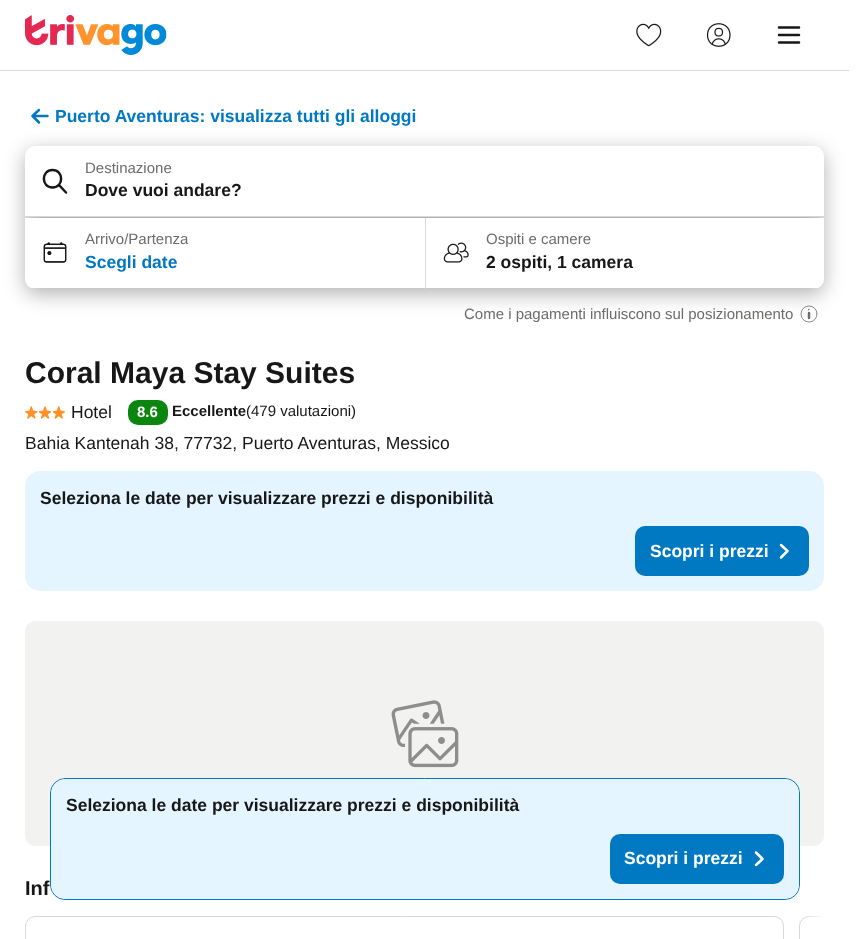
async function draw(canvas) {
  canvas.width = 867
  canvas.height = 939
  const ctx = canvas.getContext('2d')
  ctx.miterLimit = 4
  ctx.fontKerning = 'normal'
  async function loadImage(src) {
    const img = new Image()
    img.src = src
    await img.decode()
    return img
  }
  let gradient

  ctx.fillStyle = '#fff'
  ctx.fillRect(0, 0, 867, 939)
  ctx.drawImage(await loadImage('image0.png'), 25, 15, 142, 40)
  ctx.drawImage(await loadImage('image1.png'), 636, 23, 26, 24)
  ctx.drawImage(await loadImage('image2.png'), 706, 23, 25, 24)
  ctx.beginPath()
  ctx.moveTo(779, 27.5)
  ctx.lineTo(799, 27.5)
  ctx.moveTo(779, 35)
  ctx.lineTo(799, 35)
  ctx.moveTo(779, 42.5)
  ctx.lineTo(799, 42.5)
  ctx.strokeStyle = '#171717'
  ctx.lineWidth = 2.5
  ctx.lineCap = 'round'
  ctx.stroke()
  ctx.fillStyle = '#d9d8d6'
  ctx.fillRect(0, 70, 849, 1)
  ctx.beginPath()
  ctx.moveTo(39, 122.5)
  ctx.lineTo(32.5, 116)
  ctx.moveTo(39, 110)
  ctx.lineTo(32.5, 116)
  ctx.moveTo(47.5, 116)
  ctx.lineTo(32.5, 116)
  ctx.strokeStyle = '#0079c2'
  ctx.stroke()
  ctx.font = 'bold 17.5px Liberation Sans'
  ctx.fillStyle = '#0079c2'
  ctx.fillText('Puerto Aventuras: visualizza tutti gli alloggi', 55, 122)
  ctx.fillStyle = '#0000004d'
  ctx.filter = 'blur(10px)'
  ctx.beginPath()
  ctx.roundRect(25, 151, 799, 143, 10)
  ctx.fill()
  ctx.filter = 'none'
  ctx.fillStyle = '#d9d8d6'
  ctx.fillRect(25, 216, 799, 1)
  ctx.fillStyle = '#fff'
  ctx.beginPath()
  ctx.roundRect(25, 146, 799, 70, [10, 10, 0, 0])
  ctx.fill()
  ctx.beginPath()
  ctx.moveTo(52.5, 170)
  ctx.bezierCurveTo(41, 170, 41, 187.5, 52.5, 187.5)
  ctx.bezierCurveTo(64, 187.5, 64, 170, 52.5, 170)
  ctx.closePath()
  ctx.moveTo(66, 192.5)
  ctx.lineTo(59, 185)
  ctx.strokeStyle = '#171717'
  ctx.stroke()
  ctx.font = '15px Liberation Sans'
  ctx.fillStyle = '#6c6c6b'
  ctx.fillText('Destinazione', 85, 173)
  ctx.font = 'bold 17.5px Liberation Sans'
  ctx.fillStyle = '#171717'
  ctx.fillText('Dove vuoi andare?', 85, 196)
  ctx.save()
  ctx.beginPath()
  ctx.roundRect(25, 146, 799, 143, 10)
  ctx.clip()
  ctx.fillStyle = '#fff'
  ctx.fillRect(25, 218, 400, 70)
  ctx.restore()
  ctx.drawImage(await loadImage('image3.png'), 43, 242, 24, 21)
  ctx.font = '15px Liberation Sans'
  ctx.fillStyle = '#6c6c6b'
  ctx.fillText('Arrivo/Partenza', 85, 244)
  ctx.font = 'bold 17.5px Liberation Sans'
  ctx.fillStyle = '#0079c2'
  ctx.fillText('Scegli date', 85, 268)
  ctx.fillStyle = '#d9d8d6'
  ctx.fillRect(425, 218, 1, 71)
  ctx.save()
  ctx.beginPath()
  ctx.roundRect(25, 146, 799, 143, 10)
  ctx.clip()
  ctx.fillStyle = '#fff'
  ctx.fillRect(426, 218, 398, 70)
  ctx.restore()
  ctx.drawImage(await loadImage('image4.png'), 443, 242, 26, 21)
  ctx.font = '15px Liberation Sans'
  ctx.fillStyle = '#6c6c6b'
  ctx.fillText('Ospiti e camere', 486, 244)
  ctx.font = 'bold 17.5px Liberation Sans'
  ctx.fillStyle = '#171717'
  ctx.fillText('2 ospiti, 1 camera', 486, 268)
  ctx.font = '15px Liberation Sans'
  ctx.fillStyle = '#6c6c6b'
  ctx.fillText('Come i pagamenti influiscono sul posizionamento', 464, 319)
  ctx.beginPath()
  ctx.arc(809, 314, 8, 0, 2 * Math.PI)
  ctx.strokeStyle = '#6c6c6b'
  ctx.lineWidth = 0.8
  ctx.stroke()
  ctx.beginPath()
  ctx.moveTo(809, 313)
  ctx.lineTo(809, 318)
  ctx.lineWidth = 2.5
  ctx.stroke()
  ctx.beginPath()
  ctx.arc(808.8, 309.6, 0.8, 0, 2 * Math.PI)
  ctx.fill()
  ctx.font = 'bold 30px Liberation Sans'
  ctx.fillStyle = '#171717'
  ctx.fillText('Coral Maya Stay Suites', 25, 383)
  ctx.drawImage(await loadImage('image5.png'), 25, 406, 13, 13)
  ctx.drawImage(await loadImage('image6.png'), 39, 406, 12, 13)
  ctx.drawImage(await loadImage('image7.png'), 53, 406, 12, 13)
  ctx.font = '17.5px Liberation Sans'
  ctx.fillText('Hotel', 71, 418)
  ctx.fillStyle = '#0a850e'
  ctx.beginPath()
  ctx.roundRect(128, 400, 40, 25, 10)
  ctx.fill()
  ctx.font = 'bold 15px Liberation Sans'
  ctx.fillStyle = '#fff'
  ctx.fillText('8.6', 137, 417)
  ctx.fillStyle = '#171717'
  ctx.fillText('Eccellente', 172, 416)
  ctx.font = '15px Liberation Sans'
  ctx.fillText('(479 valutazioni)', 246, 416)
  ctx.font = '17.5px Liberation Sans'
  ctx.fillText('Bahia Kantenah 38, 77732, Puerto Aventuras, Messico', 25, 449)
  ctx.fillStyle = '#e5f5ff'
  ctx.beginPath()
  ctx.roundRect(25, 471, 799, 120, 15)
  ctx.fill()
  ctx.font = 'bold 17.5px Liberation Sans'
  ctx.fillStyle = '#171717'
  ctx.fillText('Seleziona le date per visualizzare prezzi e disponibilità', 40, 504)
  ctx.fillStyle = '#0079c2'
  ctx.beginPath()
  ctx.roundRect(635, 526, 174, 50, 10)
  ctx.fill()
  ctx.fillStyle = '#fff'
  ctx.fillText('Scopri i prezzi', 650, 557)
  ctx.beginPath()
  ctx.moveTo(781, 557.5)
  ctx.lineTo(787.5, 551)
  ctx.moveTo(781, 545)
  ctx.lineTo(787.5, 551)
  ctx.strokeStyle = '#fff'
  ctx.stroke()
  ctx.fillStyle = '#f2f2f1'
  ctx.beginPath()
  ctx.roundRect(25, 621, 799, 225, 10)
  ctx.fill()
  ctx.beginPath()
  ctx.roundRect(50.5, 778.5, 749, 121, 14.5)
  ctx.strokeStyle = '#0079c2'
  ctx.lineWidth = 1
  ctx.stroke()
  ctx.fillStyle = '#e5f5ff'
  ctx.beginPath()
  ctx.roundRect(51, 779, 748, 120, 15)
  ctx.fill()
  ctx.fillStyle = '#171717'
  ctx.fillText('Seleziona le date per visualizzare prezzi e disponibilità', 66, 811)
  ctx.fillStyle = '#0079c2'
  ctx.beginPath()
  ctx.roundRect(610, 834, 174, 50, 10)
  ctx.fill()
  ctx.fillStyle = '#fff'
  ctx.fillText('Scopri i prezzi', 624, 864)
  ctx.beginPath()
  ctx.moveTo(756, 865)
  ctx.lineTo(762.5, 859)
  ctx.moveTo(756, 852.5)
  ctx.lineTo(762.5, 859)
  ctx.strokeStyle = '#fff'
  ctx.lineWidth = 2.5
  ctx.stroke()
  ctx.drawImage(await loadImage('image8.png'), 391, 700, 68, 68)
  ctx.font = 'bold 20px Liberation Sans'
  ctx.fillStyle = '#171717'
  ctx.fillText('Inf', 25, 895)
  ctx.beginPath()
  ctx.roundRect(25.5, 916.5, 758, 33, 9.5)
  ctx.strokeStyle = '#d9d8d6'
  ctx.lineWidth = 1
  ctx.stroke()
  ctx.save()
  ctx.beginPath()
  ctx.rect(25, 916, 799, 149)
  ctx.clip()
  ctx.beginPath()
  ctx.roundRect(799.5, 916.5, 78, 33, 9.5)
  ctx.stroke()
  ctx.restore()
  gradient = ctx.createLinearGradient(824, 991, 804, 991)
  gradient.addColorStop(0, '#fff')
  gradient.addColorStop(1, '#ffffff00')
  ctx.fillStyle = gradient
  ctx.fillRect(806, 916, 18, 1)
}

draw(document.querySelector('canvas'))
